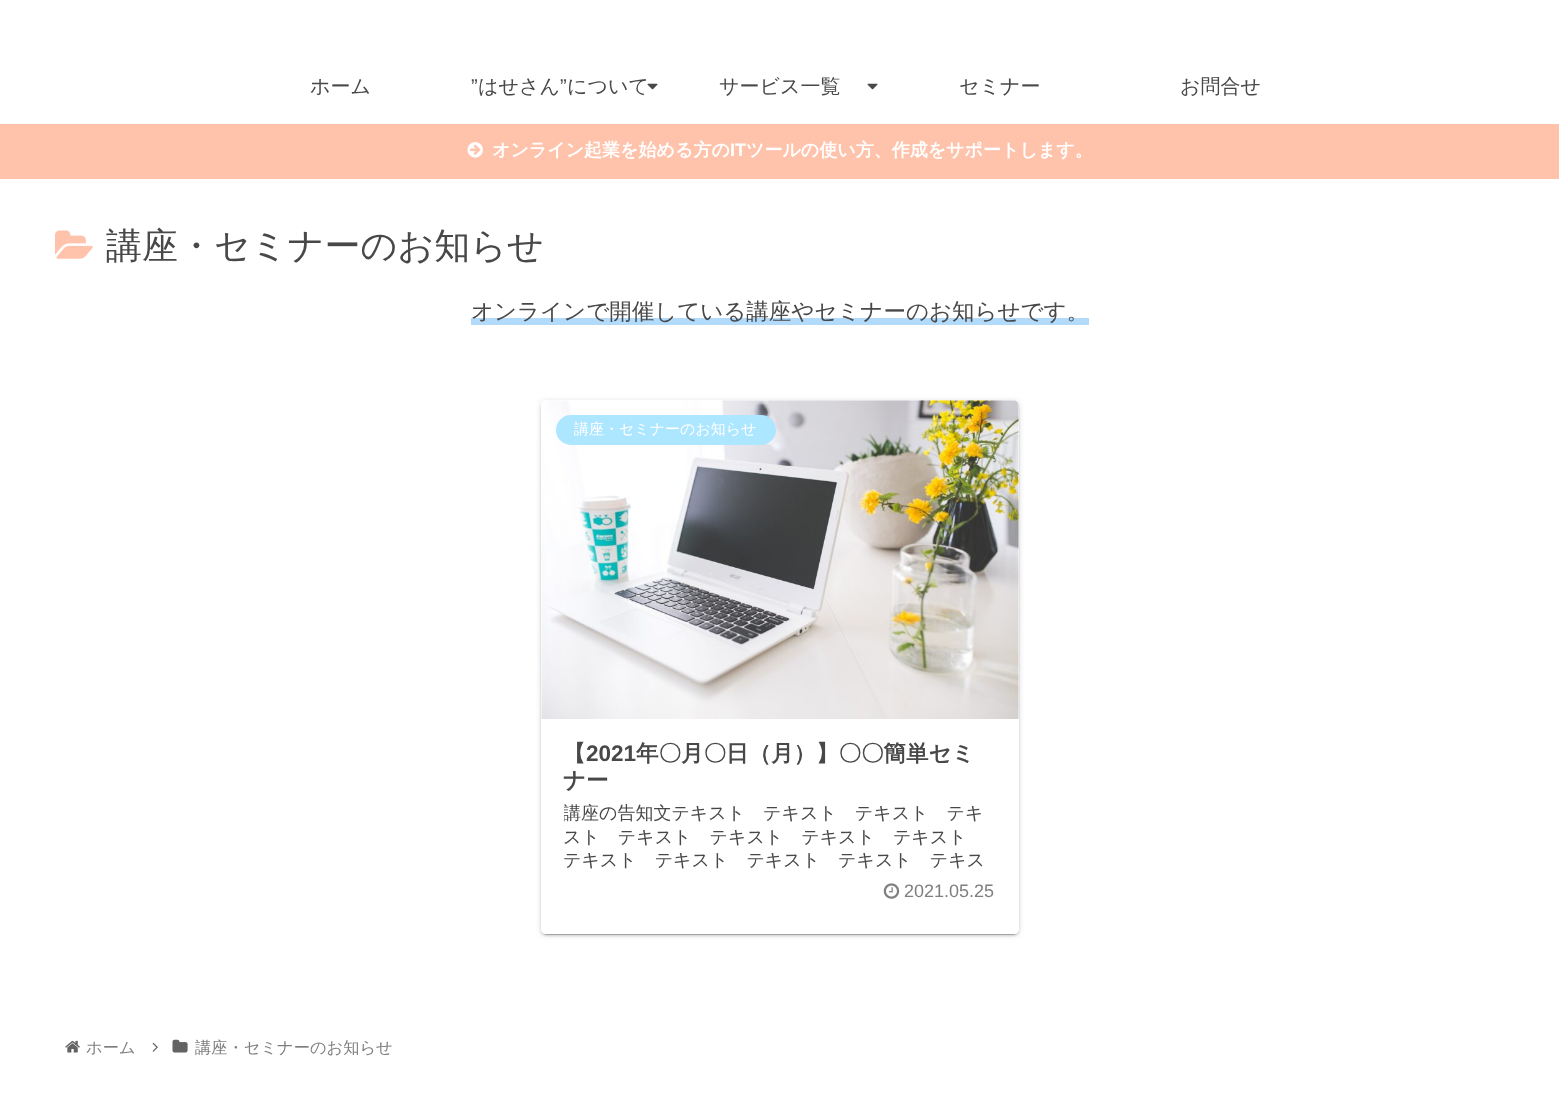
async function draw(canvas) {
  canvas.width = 1559
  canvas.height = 1094
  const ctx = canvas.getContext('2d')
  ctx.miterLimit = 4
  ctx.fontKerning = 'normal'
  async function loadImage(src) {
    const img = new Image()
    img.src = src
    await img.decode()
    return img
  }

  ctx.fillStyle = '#fff'
  ctx.fillRect(0, 0, 1559, 1094)
  ctx.font = '500 20px WenQuanYi Zen Hei'
  ctx.fillStyle = '#484848'
  ctx.fillText('ホーム', 310, 93)
  ctx.font = '20px Liberation Sans'
  ctx.fillText('”', 471, 93)
  ctx.font = '500 20px WenQuanYi Zen Hei'
  ctx.fillText('はせさん', 478, 93)
  ctx.font = '20px Liberation Sans'
  ctx.fillText('”', 560, 93)
  ctx.font = '500 20px WenQuanYi Zen Hei'
  ctx.fillText('について', 567, 93)
  ctx.drawImage(await loadImage('image0.png'), 647, 83, 11, 7)
  ctx.fillText('サービス一覧', 719, 93)
  ctx.drawImage(await loadImage('image0.png'), 867, 83, 11, 7)
  ctx.fillText('セミナー', 959, 93)
  ctx.fillText('お問合せ', 1180, 93)
  ctx.fillStyle = '#ffc3ac'
  ctx.fillRect(0, 124, 1559, 55)
  ctx.drawImage(await loadImage('image1.png'), 467, 142, 16, 16)
  ctx.font = 'bold 18px WenQuanYi Zen Hei'
  ctx.fillStyle = '#fff'
  ctx.fillText('オンライン起業を始める方の', 492, 156)
  ctx.font = 'bold 18px Liberation Sans'
  ctx.fillText('IT', 730, 156)
  ctx.font = 'bold 18px WenQuanYi Zen Hei'
  ctx.fillText('ツールの使い方、作成をサポートします。', 746, 156)
  ctx.drawImage(await loadImage('image2.png'), 55, 230, 38, 29)
  ctx.font = '500 36px WenQuanYi Zen Hei'
  ctx.fillStyle = '#484848'
  ctx.fillText('講座・セミナーのお知らせ', 106, 258)
  ctx.fillStyle = '#b2dafb'
  ctx.fillRect(471, 318, 618, 7)
  ctx.font = '500 22.5px WenQuanYi Zen Hei'
  ctx.fillStyle = '#484848'
  ctx.fillText('オンラインで開催している講座やセミナーのお知らせです。', 471, 319)
  ctx.save()
  ctx.beginPath()
  ctx.moveTo(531, 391)
  ctx.lineTo(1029, 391)
  ctx.lineTo(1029, 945)
  ctx.lineTo(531, 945)
  ctx.closePath()
  ctx.moveTo(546, 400)
  ctx.lineTo(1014, 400)
  ctx.bezierCurveTo(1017, 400, 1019, 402, 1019, 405)
  ctx.lineTo(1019, 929)
  ctx.bezierCurveTo(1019, 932, 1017, 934, 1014, 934)
  ctx.lineTo(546, 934)
  ctx.bezierCurveTo(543, 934, 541, 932, 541, 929)
  ctx.lineTo(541, 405)
  ctx.bezierCurveTo(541, 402, 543, 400, 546, 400)
  ctx.closePath()
  ctx.clip('evenodd')
  ctx.fillStyle = '#0000001f'
  ctx.filter = 'blur(3px)'
  ctx.beginPath()
  ctx.roundRect(541, 401, 478, 534, 5)
  ctx.fill()
  ctx.filter = 'none'
  ctx.restore()
  ctx.save()
  ctx.beginPath()
  ctx.moveTo(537, 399)
  ctx.lineTo(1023, 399)
  ctx.lineTo(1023, 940)
  ctx.lineTo(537, 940)
  ctx.closePath()
  ctx.moveTo(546, 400)
  ctx.lineTo(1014, 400)
  ctx.bezierCurveTo(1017, 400, 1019, 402, 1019, 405)
  ctx.lineTo(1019, 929)
  ctx.bezierCurveTo(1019, 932, 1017, 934, 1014, 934)
  ctx.lineTo(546, 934)
  ctx.bezierCurveTo(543, 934, 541, 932, 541, 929)
  ctx.lineTo(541, 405)
  ctx.bezierCurveTo(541, 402, 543, 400, 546, 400)
  ctx.closePath()
  ctx.clip('evenodd')
  ctx.fillStyle = '#00000024'
  ctx.filter = 'blur(1px)'
  ctx.beginPath()
  ctx.roundRect(541, 403, 478, 533, 5)
  ctx.fill()
  ctx.filter = 'none'
  ctx.restore()
  ctx.save()
  ctx.beginPath()
  ctx.moveTo(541, 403)
  ctx.lineTo(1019, 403)
  ctx.lineTo(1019, 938)
  ctx.lineTo(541, 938)
  ctx.closePath()
  ctx.moveTo(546, 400)
  ctx.lineTo(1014, 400)
  ctx.bezierCurveTo(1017, 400, 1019, 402, 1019, 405)
  ctx.lineTo(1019, 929)
  ctx.bezierCurveTo(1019, 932, 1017, 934, 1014, 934)
  ctx.lineTo(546, 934)
  ctx.bezierCurveTo(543, 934, 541, 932, 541, 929)
  ctx.lineTo(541, 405)
  ctx.bezierCurveTo(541, 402, 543, 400, 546, 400)
  ctx.closePath()
  ctx.clip('evenodd')
  ctx.fillStyle = '#00000033'
  ctx.filter = 'blur(0.5px)'
  ctx.beginPath()
  ctx.roundRect(544, 406, 472, 529, 2.5)
  ctx.fill()
  ctx.filter = 'none'
  ctx.restore()
  ctx.fillStyle = '#ffffff33'
  ctx.beginPath()
  ctx.roundRect(541, 400, 478, 534, 5)
  ctx.fill()
  ctx.drawImage(await loadImage('image3.png'), 541, 400, 478, 319)
  ctx.fillStyle = '#ade6ff'
  ctx.beginPath()
  ctx.roundRect(556, 415, 220, 30, 15)
  ctx.fill()
  ctx.font = '500 15px WenQuanYi Zen Hei'
  ctx.fillStyle = '#fff'
  ctx.fillText('講座・セミナーのお知らせ', 574, 434)
  ctx.font = 'bold 22.5px WenQuanYi Zen Hei'
  ctx.fillStyle = '#484848'
  ctx.fillText('【', 563, 761)
  ctx.font = 'bold 22.5px Liberation Sans'
  ctx.fillText('2021', 586, 761)
  ctx.font = 'bold 22.5px WenQuanYi Zen Hei'
  ctx.fillText('年〇月〇日（月）】〇〇簡単セミ', 636, 761)
  ctx.fillText('ナー', 563, 788)
  ctx.save()
  ctx.beginPath()
  ctx.rect(564, 801, 432, 73)
  ctx.clip()
  ctx.font = '500 18px WenQuanYi Zen Hei'
  ctx.fillText('講座の告知文テキスト　テキスト　テキスト　テキ', 563, 819)
  ctx.restore()
  ctx.font = '500 18px WenQuanYi Zen Hei'
  ctx.fillText('スト　テキスト　テキスト　テキスト　テキスト', 563, 843)
  ctx.fillText('テキスト　テキスト　テキスト　テキスト　テキス', 563, 866)
  ctx.drawImage(await loadImage('image4.png'), 883, 883, 17, 16)
  ctx.font = '18px Liberation Sans'
  ctx.fillStyle = '#7f7f7f'
  ctx.fillText('2021.05.25', 904, 897)
  ctx.drawImage(await loadImage('image5.png'), 65, 1040, 15, 13)
  ctx.font = '500 16.25px WenQuanYi Zen Hei'
  ctx.fillText('ホーム', 86, 1053)
  ctx.drawImage(await loadImage('image6.png'), 152, 1042, 6, 10)
  ctx.drawImage(await loadImage('image7.png'), 172, 1039, 16, 14)
  ctx.fillText('講座・セミナーのお知らせ', 195, 1053)
}

draw(document.querySelector('canvas'))
